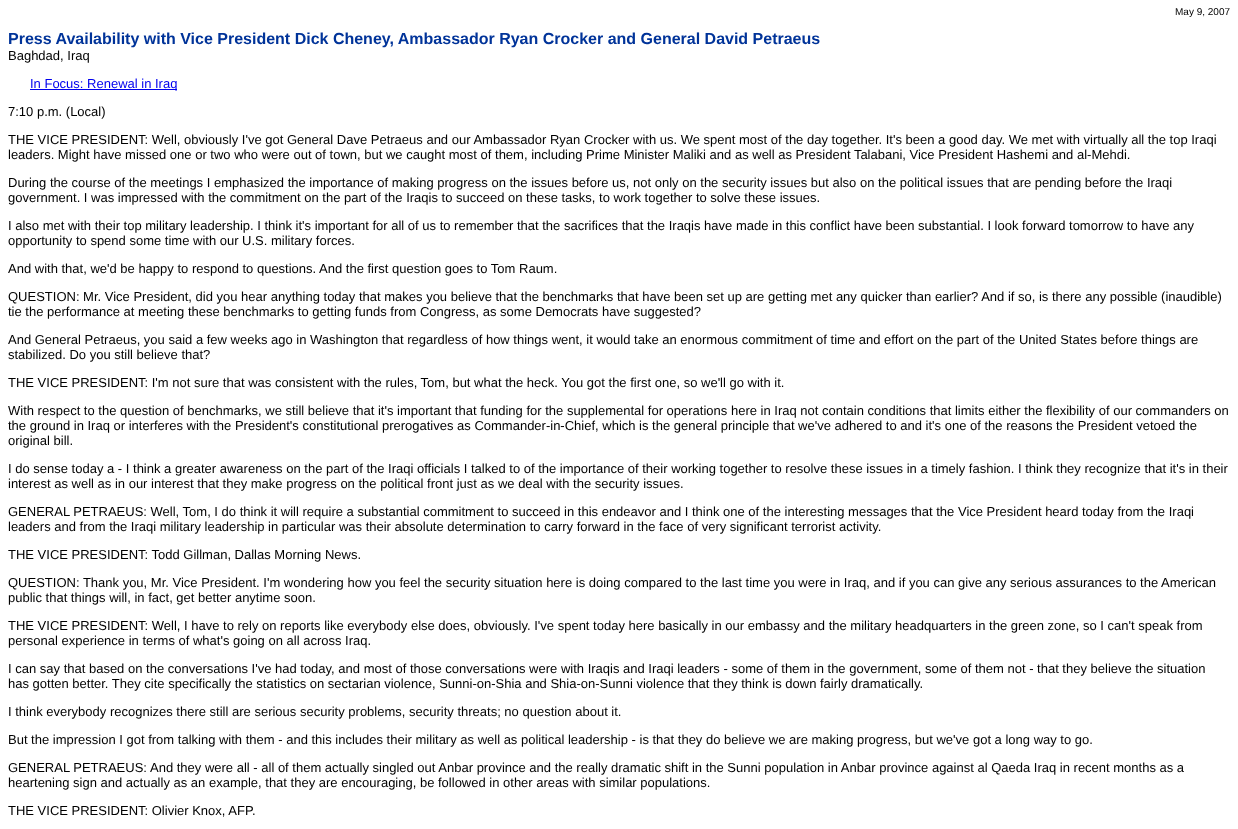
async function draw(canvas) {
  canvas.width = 1238
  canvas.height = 829
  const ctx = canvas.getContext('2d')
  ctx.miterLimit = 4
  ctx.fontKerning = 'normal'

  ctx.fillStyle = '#fff'
  ctx.fillRect(0, 0, 1238, 829)
  ctx.font = '10px Liberation Sans'
  ctx.fillStyle = '#000'
  ctx.fillText('May 9, 2007', 1175, 15)
  ctx.font = 'bold 16px Liberation Sans'
  ctx.fillStyle = '#039'
  ctx.fillText('Press Availability with Vice President Dick Cheney, Ambassador Ryan Crocker and General David Petraeus', 8, 44)
  ctx.font = '13px Liberation Sans'
  ctx.fillStyle = '#000'
  ctx.fillText('Baghdad, Iraq', 8, 60)
  ctx.fillStyle = '#00e'
  ctx.fillRect(30, 89, 147, 1)
  ctx.fillText('In Focus: Renewal in Iraq', 30, 88)
  ctx.fillStyle = '#000'
  ctx.fillText('7:10 p.m. (Local)', 8, 116)
  ctx.fillText('THE VICE PRESIDENT: Well, obviously I\'ve got General Dave Petraeus and our Ambassador Ryan Crocker with us. We spent most of the day together. It\'s been a good day. We met with virtually all the top Iraqi', 8, 144)
  ctx.fillText('leaders. Might have missed one or two who were out of town, but we caught most of them, including Prime Minister Maliki and as well as President Talabani, Vice President Hashemi and al-Mehdi.', 8, 159)
  ctx.fillText('During the course of the meetings I emphasized the importance of making progress on the issues before us, not only on the security issues but also on the political issues that are pending before the Iraqi', 8, 187)
  ctx.fillText('government. I was impressed with the commitment on the part of the Iraqis to succeed on these tasks, to work together to solve these issues.', 8, 202)
  ctx.fillText('I also met with their top military leadership. I think it\'s important for all of us to remember that the sacrifices that the Iraqis have made in this conflict have been substantial. I look forward tomorrow to have any', 8, 230)
  ctx.fillText('opportunity to spend some time with our U.S. military forces.', 8, 245)
  ctx.fillText('And with that, we\'d be happy to respond to questions. And the first question goes to Tom Raum.', 8, 273)
  ctx.fillText('QUESTION: Mr. Vice President, did you hear anything today that makes you believe that the benchmarks that have been set up are getting met any quicker than earlier? And if so, is there any possible (inaudible)', 8, 301)
  ctx.fillText('tie the performance at meeting these benchmarks to getting funds from Congress, as some Democrats have suggested?', 8, 316)
  ctx.fillText('And General Petraeus, you said a few weeks ago in Washington that regardless of how things went, it would take an enormous commitment of time and effort on the part of the United States before things are', 8, 344)
  ctx.fillText('stabilized. Do you still believe that?', 8, 359)
  ctx.fillText('THE VICE PRESIDENT: I\'m not sure that was consistent with the rules, Tom, but what the heck. You got the first one, so we\'ll go with it.', 8, 387)
  ctx.fillText('With respect to the question of benchmarks, we still believe that it\'s important that funding for the supplemental for operations here in Iraq not contain conditions that limits either the flexibility of our commanders on', 8, 415)
  ctx.fillText('the ground in Iraq or interferes with the President\'s constitutional prerogatives as Commander-in-Chief, which is the general principle that we\'ve adhered to and it\'s one of the reasons the President vetoed the', 8, 430)
  ctx.fillText('original bill.', 8, 445)
  ctx.fillText('I do sense today a - I think a greater awareness on the part of the Iraqi officials I talked to of the importance of their working together to resolve these issues in a timely fashion. I think they recognize that it\'s in their', 8, 473)
  ctx.fillText('interest as well as in our interest that they make progress on the political front just as we deal with the security issues.', 8, 488)
  ctx.fillText('GENERAL PETRAEUS: Well, Tom, I do think it will require a substantial commitment to succeed in this endeavor and I think one of the interesting messages that the Vice President heard today from the Iraqi', 8, 516)
  ctx.fillText('leaders and from the Iraqi military leadership in particular was their absolute determination to carry forward in the face of very significant terrorist activity.', 8, 531)
  ctx.fillText('THE VICE PRESIDENT: Todd Gillman, Dallas Morning News.', 8, 559)
  ctx.fillText('QUESTION: Thank you, Mr. Vice President. I\'m wondering how you feel the security situation here is doing compared to the last time you were in Iraq, and if you can give any serious assurances to the American', 8, 587)
  ctx.fillText('public that things will, in fact, get better anytime soon.', 8, 602)
  ctx.fillText('THE VICE PRESIDENT: Well, I have to rely on reports like everybody else does, obviously. I\'ve spent today here basically in our embassy and the military headquarters in the green zone, so I can\'t speak from', 8, 630)
  ctx.fillText('personal experience in terms of what\'s going on all across Iraq.', 8, 645)
  ctx.fillText('I can say that based on the conversations I\'ve had today, and most of those conversations were with Iraqis and Iraqi leaders - some of them in the government, some of them not - that they believe the situation', 8, 673)
  ctx.fillText('has gotten better. They cite specifically the statistics on sectarian violence, Sunni-on-Shia and Shia-on-Sunni violence that they think is down fairly dramatically.', 8, 688)
  ctx.fillText('I think everybody recognizes there still are serious security problems, security threats; no question about it.', 8, 716)
  ctx.fillText('But the impression I got from talking with them - and this includes their military as well as political leadership - is that they do believe we are making progress, but we\'ve got a long way to go.', 8, 744)
  ctx.fillText('GENERAL PETRAEUS:', 8, 772)
  ctx.fillText('And they were all - all of them actually singled out Anbar province and the really dramatic shift in the Sunni population in Anbar province against al Qaeda Iraq in recent months as a', 150, 772)
  ctx.fillText('heartening sign and actually as an example, that they are encouraging, be followed in other areas with similar populations.', 8, 787)
  ctx.fillText('THE VICE PRESIDENT: Olivier Knox, AFP.', 8, 815)
}

draw(document.querySelector('canvas'))
